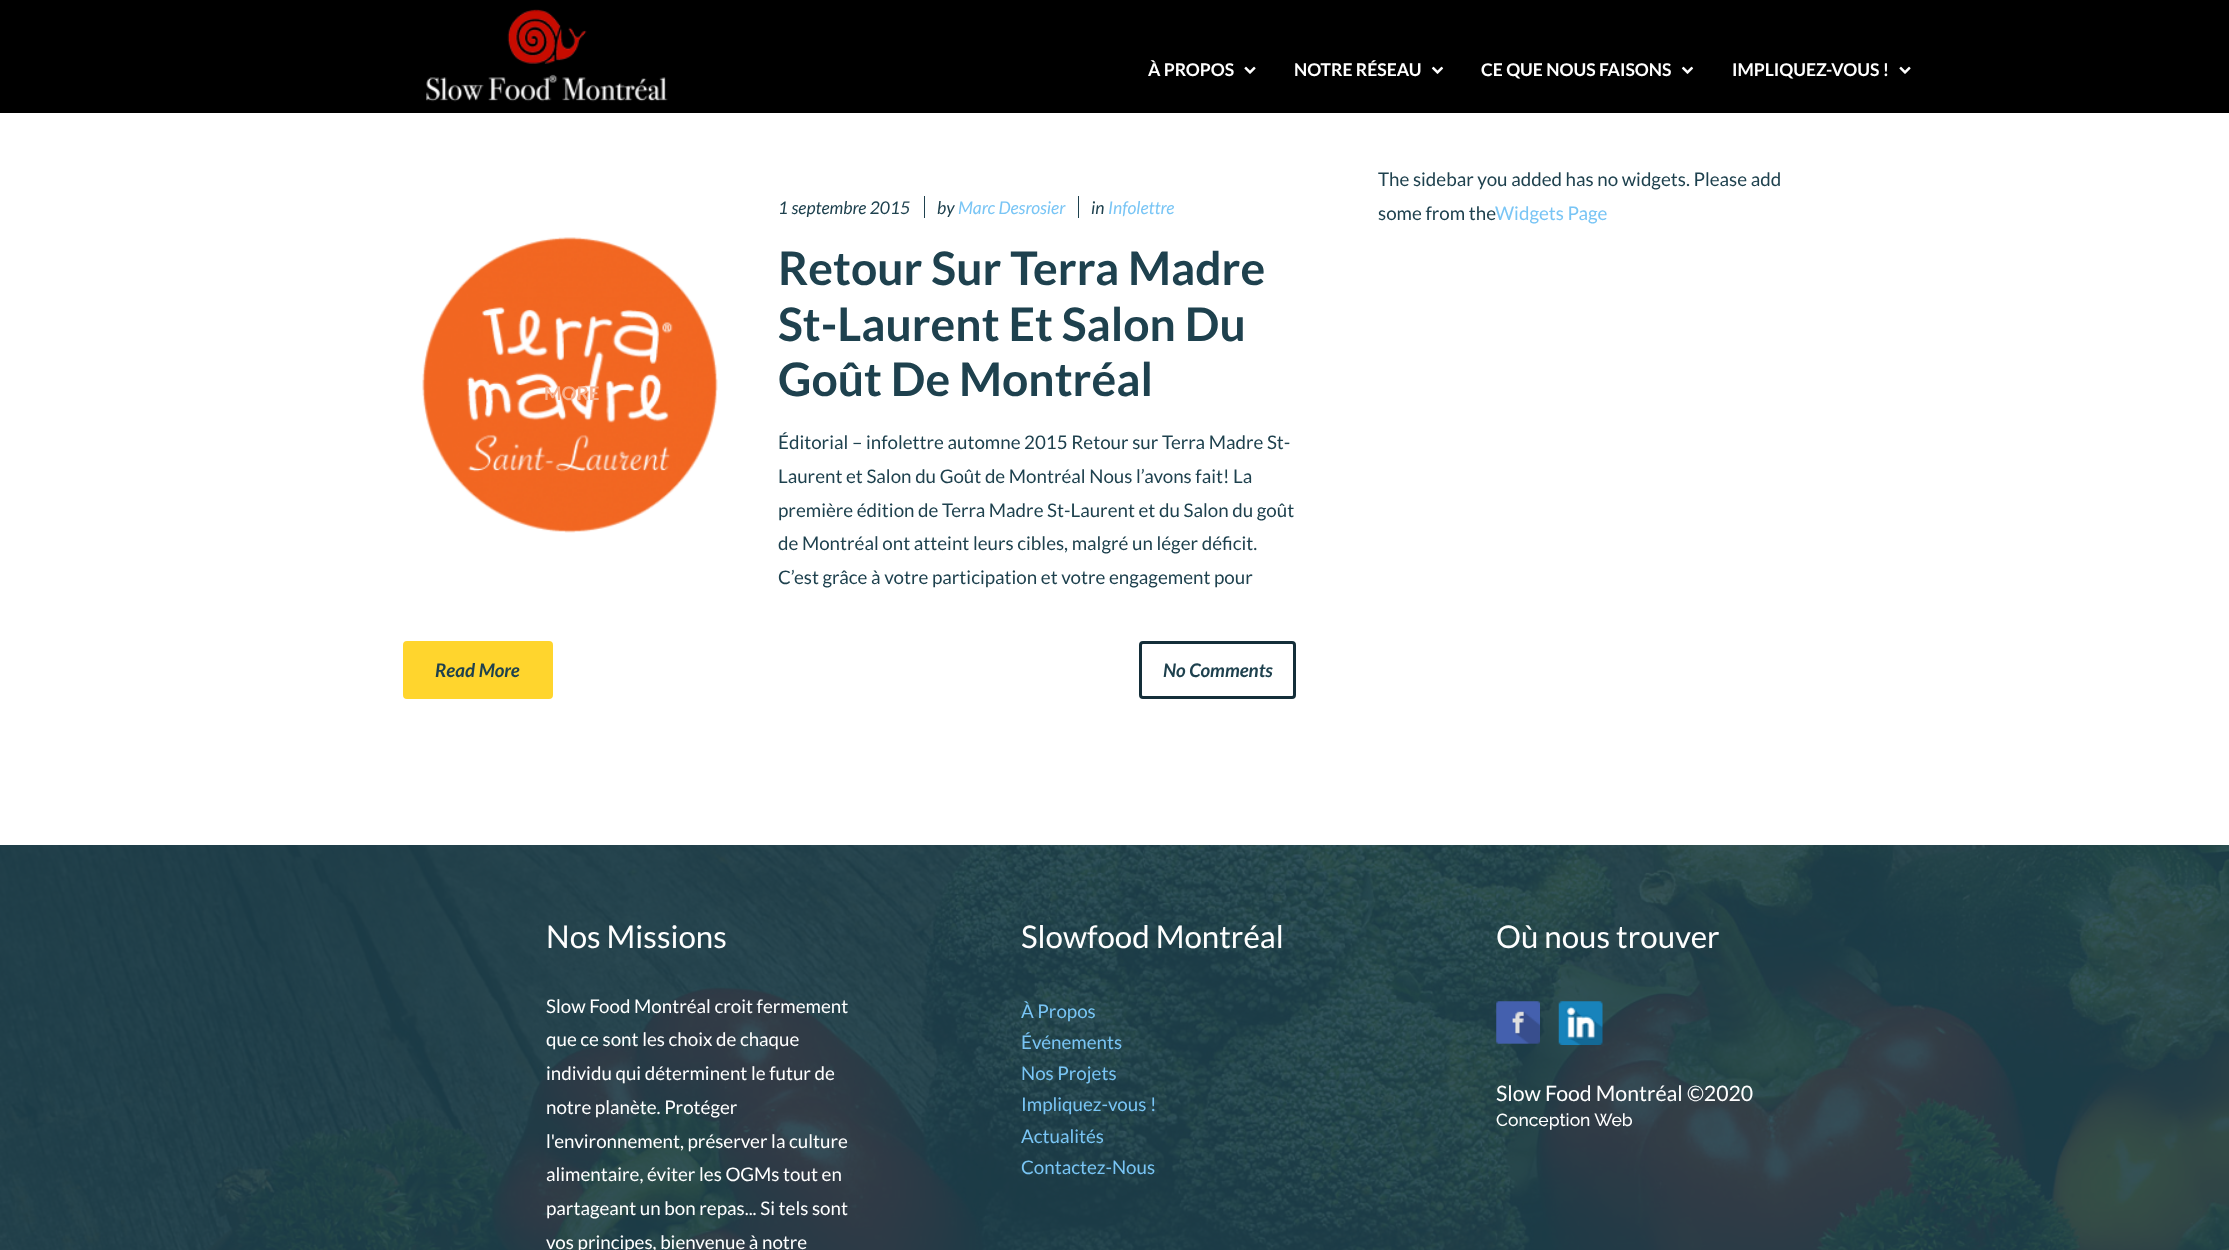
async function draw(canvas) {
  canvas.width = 2229
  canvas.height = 1250
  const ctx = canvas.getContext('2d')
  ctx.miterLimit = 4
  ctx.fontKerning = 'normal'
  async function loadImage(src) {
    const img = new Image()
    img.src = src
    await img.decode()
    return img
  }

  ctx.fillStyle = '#fff'
  ctx.fillRect(0, 0, 2229, 1250)
  ctx.fillStyle = '#000'
  ctx.fillRect(0, 0, 2229, 113)
  ctx.drawImage(await loadImage('image0.png'), 426, 9, 242, 93)
  ctx.font = 'bold 17.5px Lato'
  ctx.fillStyle = '#fff'
  ctx.fillText('À PROPOS', 1148, 76)
  ctx.drawImage(await loadImage('image1.png'), 1244, 66, 12, 8)
  ctx.fillText('NOTRE RÉSEAU', 1294, 76)
  ctx.drawImage(await loadImage('image2.png'), 1431, 66, 13, 8)
  ctx.fillText('CE QUE NOUS FAISONS', 1481, 76)
  ctx.drawImage(await loadImage('image2.png'), 1681, 66, 13, 8)
  ctx.fillText('IMPLIQUEZ', 1732, 76)
  ctx.fillText('-VOUS !', 1826, 76)
  ctx.drawImage(await loadImage('image1.png'), 1899, 66, 12, 8)
  ctx.drawImage(await loadImage('image3.png'), 422, 237, 296, 296)
  ctx.font = 'bold 18.75px Lato'
  ctx.fillStyle = '#f8b08d'
  ctx.fillText('MORE', 544, 400)
  ctx.font = 'italic 17.5px Lato'
  ctx.fillStyle = '#1e414e'
  ctx.fillText('1 septembre 2015', 778, 214)
  ctx.fillText('by', 937, 214)
  ctx.fillRect(924, 196, 1, 22)
  ctx.fillStyle = '#79c5f5'
  ctx.fillText('Marc Desrosier', 958, 214)
  ctx.fillStyle = '#1e414e'
  ctx.fillText('in', 1091, 214)
  ctx.fillRect(1078, 196, 1, 22)
  ctx.fillStyle = '#79c5f5'
  ctx.fillText('Infolettre', 1108, 214)
  ctx.font = 'bold 46.25px Lato'
  ctx.fillStyle = '#1e414e'
  ctx.fillText('Retour Sur Terra Madre', 778, 285)
  ctx.fillText('St-Laurent Et Salon Du', 778, 341)
  ctx.fillText('Goût De Montréal', 778, 396)
  ctx.font = '18.75px Lato'
  ctx.fillText('Éditorial – infolettre automne 2015 Retour sur Terra Madre St-', 778, 449)
  ctx.fillText('Laurent et Salon du Goût de Montréal Nous l’avons fait! La', 778, 483)
  ctx.fillText('première édition de Terra Madre St-Laurent et du Salon du goût', 778, 517)
  ctx.fillText('de Montréal ont atteint leurs cibles, malgré un léger déficit.', 778, 550)
  ctx.fillText('C’est grâce à votre participation et votre engagement pour', 778, 584)
  ctx.fillStyle = '#ffd52d'
  ctx.beginPath()
  ctx.roundRect(404.5, 642.5, 147, 55, 2.5)
  ctx.fill()
  ctx.strokeStyle = '#ffd52d'
  ctx.lineWidth = 3
  ctx.stroke()
  ctx.font = 'italic bold 18.75px Lato'
  ctx.fillStyle = '#1e414e'
  ctx.fillText('Read More', 435, 677)
  ctx.beginPath()
  ctx.roundRect(1140.5, 642.5, 154, 55, 2.5)
  ctx.strokeStyle = '#142e39'
  ctx.stroke()
  ctx.fillText('No Comments', 1163, 677)
  ctx.font = '18.75px Lato'
  ctx.fillText('The sidebar you added has no widgets. Please add', 1378, 186)
  ctx.fillText('some from the', 1378, 220)
  ctx.fillStyle = '#79c5f5'
  ctx.fillText('Widgets Page', 1495, 220)
  ctx.drawImage(await loadImage('image4.png'), 0, 845, 2229, 405)
  ctx.font = '31.25px Lato'
  ctx.fillStyle = '#fff'
  ctx.fillText('Nos Missions', 546, 948)
  ctx.font = '18.75px Lato'
  ctx.fillText('Slow Food Montréal croit fermement', 546, 1013)
  ctx.fillText('que ce sont les choix de chaque', 546, 1046)
  ctx.fillText('individu qui déterminent le futur de', 546, 1080)
  ctx.fillText('notre planète. Protéger', 546, 1114)
  ctx.fillText('l\'environnement, préserver la culture', 546, 1148)
  ctx.fillText('alimentaire, éviter les OGMs tout en', 546, 1181)
  ctx.fillText('partageant un bon repas... Si tels sont', 546, 1215)
  ctx.fillText('vos principes, bienvenue à notre', 546, 1249)
  ctx.font = '31.25px Lato'
  ctx.fillText('Slowfood Montréal', 1021, 948)
  ctx.font = '18.75px Lato'
  ctx.fillStyle = '#79c5f5'
  ctx.fillText('À Propos', 1021, 1018)
  ctx.fillText('Événements', 1021, 1049)
  ctx.fillText('Nos Projets', 1021, 1080)
  ctx.fillText('Impliquez-vous !', 1021, 1111)
  ctx.fillText('Actualités', 1021, 1143)
  ctx.fillText('Contactez-Nous', 1021, 1174)
  ctx.font = '31.25px Lato'
  ctx.fillStyle = '#fff'
  ctx.fillText('Où nous trouver', 1496, 948)
  ctx.drawImage(await loadImage('image5.png'), 1496, 1001, 44, 43)
  ctx.drawImage(await loadImage('image6.png'), 1558, 1001, 45, 44)
  ctx.font = '21.25px Lato'
  ctx.fillText('Slow Food Montréal ©2020', 1496, 1101)
  ctx.font = '500 17.5px Raleway'
  ctx.fillText('Conception Web', 1496, 1126)
}

draw(document.querySelector('canvas'))
